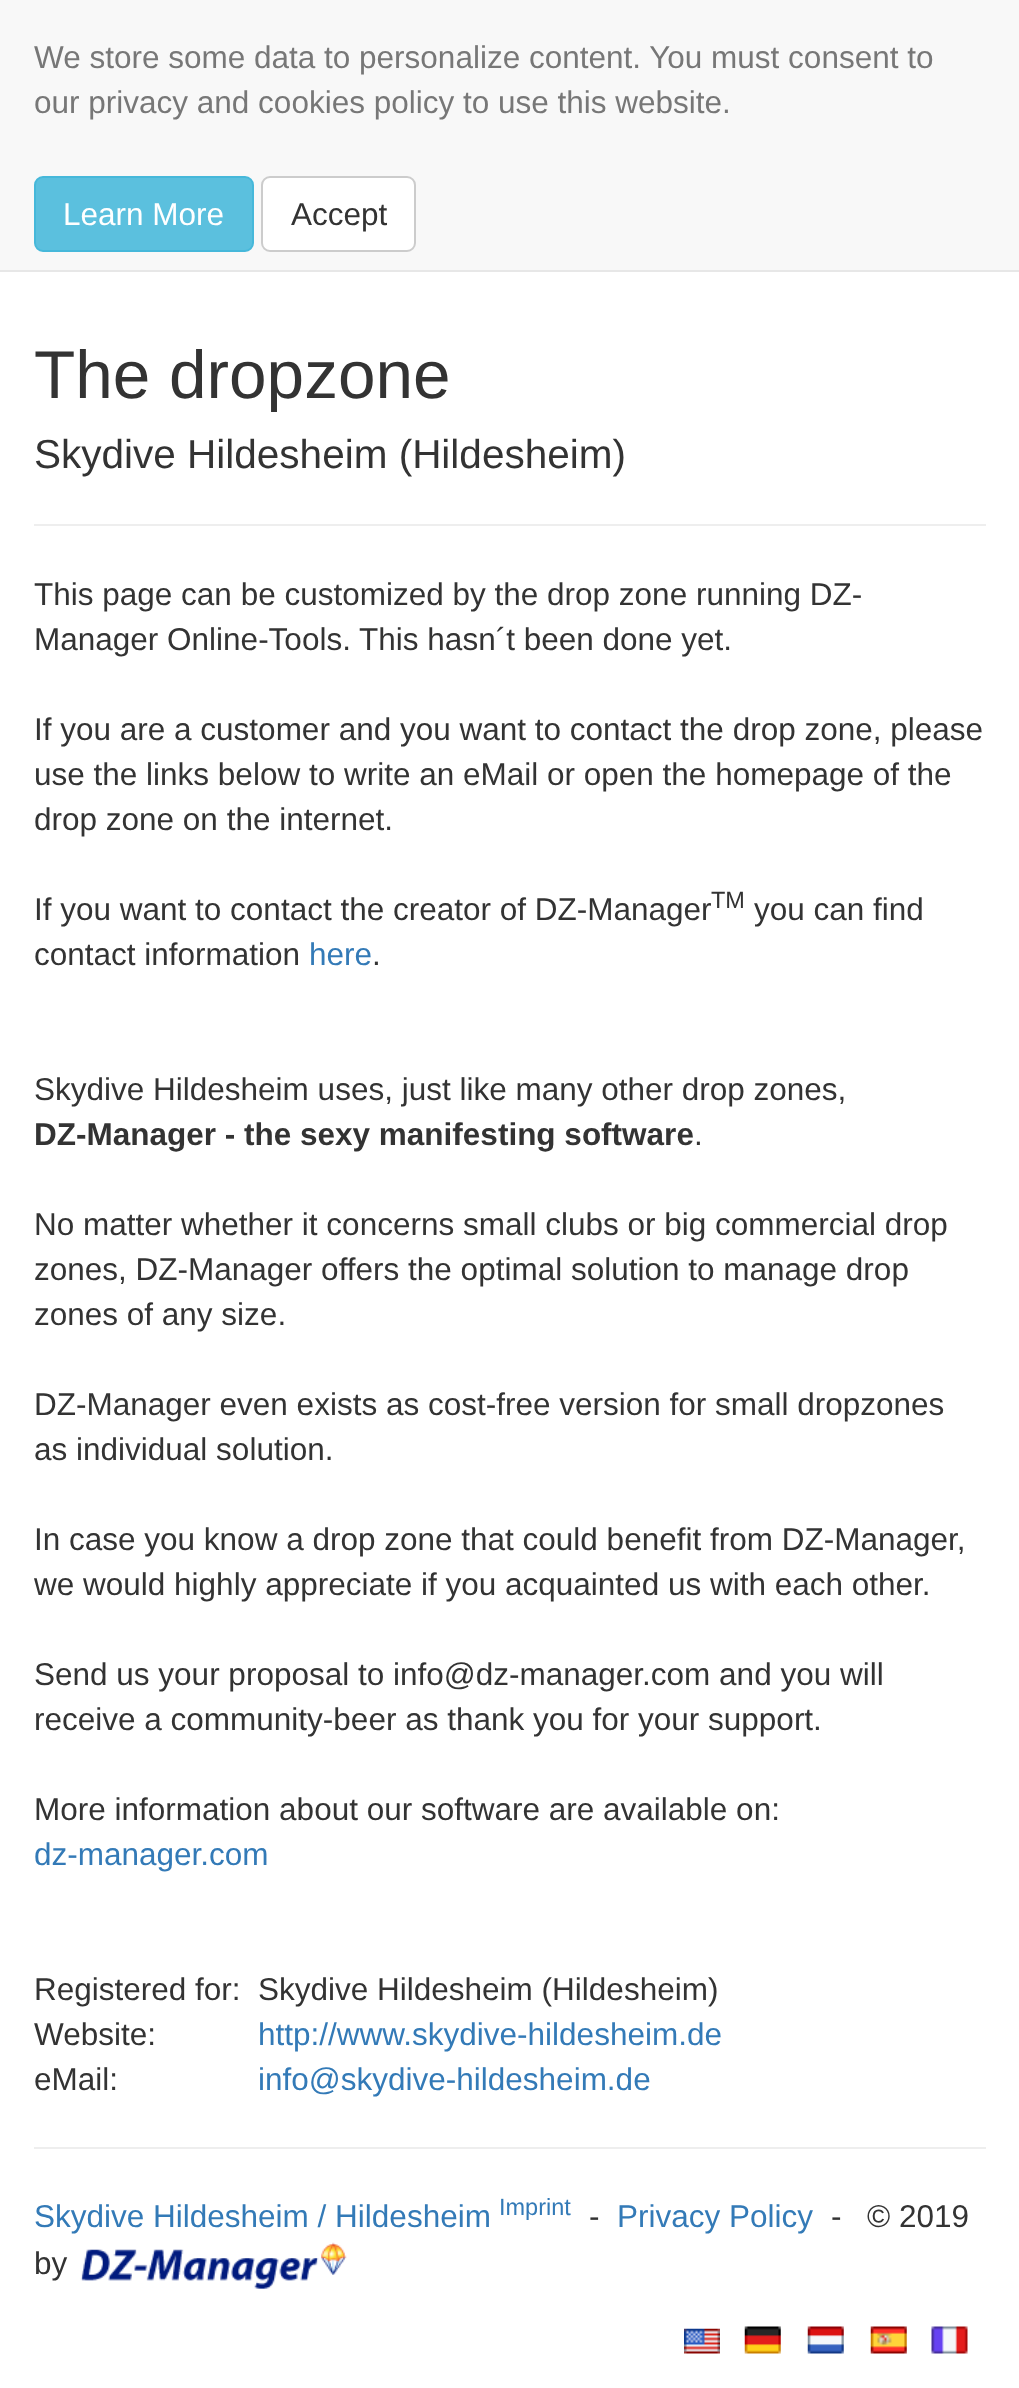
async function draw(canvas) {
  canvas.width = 1019
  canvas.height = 2388
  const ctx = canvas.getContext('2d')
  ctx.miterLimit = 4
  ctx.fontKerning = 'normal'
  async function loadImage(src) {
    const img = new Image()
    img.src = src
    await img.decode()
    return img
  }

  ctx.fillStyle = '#fff'
  ctx.fillRect(0, 0, 1019, 2388)
  ctx.fillStyle = '#f8f8f8'
  ctx.fillRect(0, 0, 1019, 270)
  ctx.fillStyle = '#e7e7e7'
  ctx.fillRect(0, 270, 1019, 2)
  ctx.font = '31.5px Liberation Sans'
  ctx.fillStyle = '#777'
  ctx.fillText('We store some data to personalize content. You must consent to', 34, 68)
  ctx.fillText('our privacy and cookies policy to use this website.', 34, 113)
  ctx.fillStyle = '#5bc0de'
  ctx.beginPath()
  ctx.roundRect(35, 177, 218, 74, 8)
  ctx.fill()
  ctx.strokeStyle = '#46b8da'
  ctx.lineWidth = 2
  ctx.stroke()
  ctx.fillStyle = '#fff'
  ctx.fillText('Learn More', 63, 225)
  ctx.beginPath()
  ctx.roundRect(262, 177, 153, 74, 8)
  ctx.fill()
  ctx.strokeStyle = '#ccc'
  ctx.stroke()
  ctx.fillStyle = '#333'
  ctx.fillText('Accept', 291, 225)
  ctx.font = '67.5px Liberation Sans'
  ctx.fillText('The dropzone', 34, 398)
  ctx.font = '40.5px Liberation Sans'
  ctx.fillText('Skydive Hildesheim (Hildesheim)', 34, 468)
  ctx.fillStyle = '#eee'
  ctx.fillRect(34, 524, 952, 2)
  ctx.font = '31.5px Liberation Sans'
  ctx.fillStyle = '#333'
  ctx.fillText('This page can be customized by the drop zone running DZ-', 34, 605)
  ctx.fillText('Manager Online-Tools. This hasn´t been done yet.', 34, 650)
  ctx.fillText('If you are a customer and you want to contact the drop zone, please', 34, 740)
  ctx.fillText('use the links below to write an eMail or open the homepage of the', 34, 785)
  ctx.fillText('drop zone on the internet.', 34, 830)
  ctx.fillText('If you want to contact the creator of DZ-Manager', 34, 920)
  ctx.font = '23.5px Liberation Sans'
  ctx.fillText('TM', 711, 908)
  ctx.font = '31.5px Liberation Sans'
  ctx.fillText('you can find', 754, 920)
  ctx.fillText('contact information', 34, 965)
  ctx.fillStyle = '#337ab7'
  ctx.fillText('here', 309, 965)
  ctx.fillStyle = '#333'
  ctx.fillText('.', 372, 965)
  ctx.fillText('Skydive Hildesheim uses, just like many other drop zones,', 34, 1100)
  ctx.font = 'bold 31.5px Liberation Sans'
  ctx.fillText('DZ-Manager - the sexy manifesting software', 34, 1145)
  ctx.font = '31.5px Liberation Sans'
  ctx.fillText('.', 694, 1145)
  ctx.fillText('No matter whether it concerns small clubs or big commercial drop', 34, 1235)
  ctx.fillText('zones, DZ-Manager offers the optimal solution to manage drop', 34, 1280)
  ctx.fillText('zones of any size.', 34, 1325)
  ctx.fillText('DZ-Manager even exists as cost-free version for small dropzones', 34, 1415)
  ctx.fillText('as individual solution.', 34, 1460)
  ctx.fillText('In case you know a drop zone that could benefit from DZ-Manager,', 34, 1550)
  ctx.fillText('we would highly appreciate if you acquainted us with each other.', 34, 1595)
  ctx.fillText('Send us your proposal to info@dz-manager.com and you will', 34, 1685)
  ctx.fillText('receive a community-beer as thank you for your support.', 34, 1730)
  ctx.fillText('More information about our software are available on:', 34, 1820)
  ctx.fillStyle = '#337ab7'
  ctx.fillText('dz-manager.com', 34, 1865)
  ctx.fillStyle = '#333'
  ctx.fillText('Registered for:', 34, 2000)
  ctx.fillText('Skydive Hildesheim (Hildesheim)', 258, 2000)
  ctx.fillText('Website:', 34, 2045)
  ctx.fillStyle = '#337ab7'
  ctx.fillText('http://www.skydive-hildesheim.de', 258, 2045)
  ctx.fillStyle = '#333'
  ctx.fillText('eMail:', 34, 2090)
  ctx.fillStyle = '#337ab7'
  ctx.fillText('info@skydive-hildesheim.de', 258, 2090)
  ctx.fillStyle = '#eee'
  ctx.fillRect(34, 2147, 952, 2)
  ctx.fillStyle = '#337ab7'
  ctx.fillText('Skydive Hildesheim / Hildesheim', 34, 2227)
  ctx.font = '23.5px Liberation Sans'
  ctx.fillText('Imprint', 499, 2215)
  ctx.font = '31.5px Liberation Sans'
  ctx.fillStyle = '#333'
  ctx.fillText('-', 589, 2227)
  ctx.fillStyle = '#337ab7'
  ctx.fillText('Privacy Policy', 617, 2227)
  ctx.fillStyle = '#333'
  ctx.fillText('-', 831, 2227)
  ctx.fillText('© 2019', 867, 2227)
  ctx.fillText('by', 34, 2274)
  ctx.drawImage(await loadImage('image0.png'), 80, 2242, 267, 47)
  ctx.drawImage(await loadImage('image1.png'), 684, 2328, 36, 26)
  ctx.drawImage(await loadImage('image2.png'), 744, 2326, 37, 28)
  ctx.drawImage(await loadImage('image3.png'), 807, 2326, 37, 28)
  ctx.drawImage(await loadImage('image4.png'), 870, 2326, 37, 28)
  ctx.drawImage(await loadImage('image5.png'), 931, 2326, 37, 28)
}

draw(document.querySelector('canvas'))
